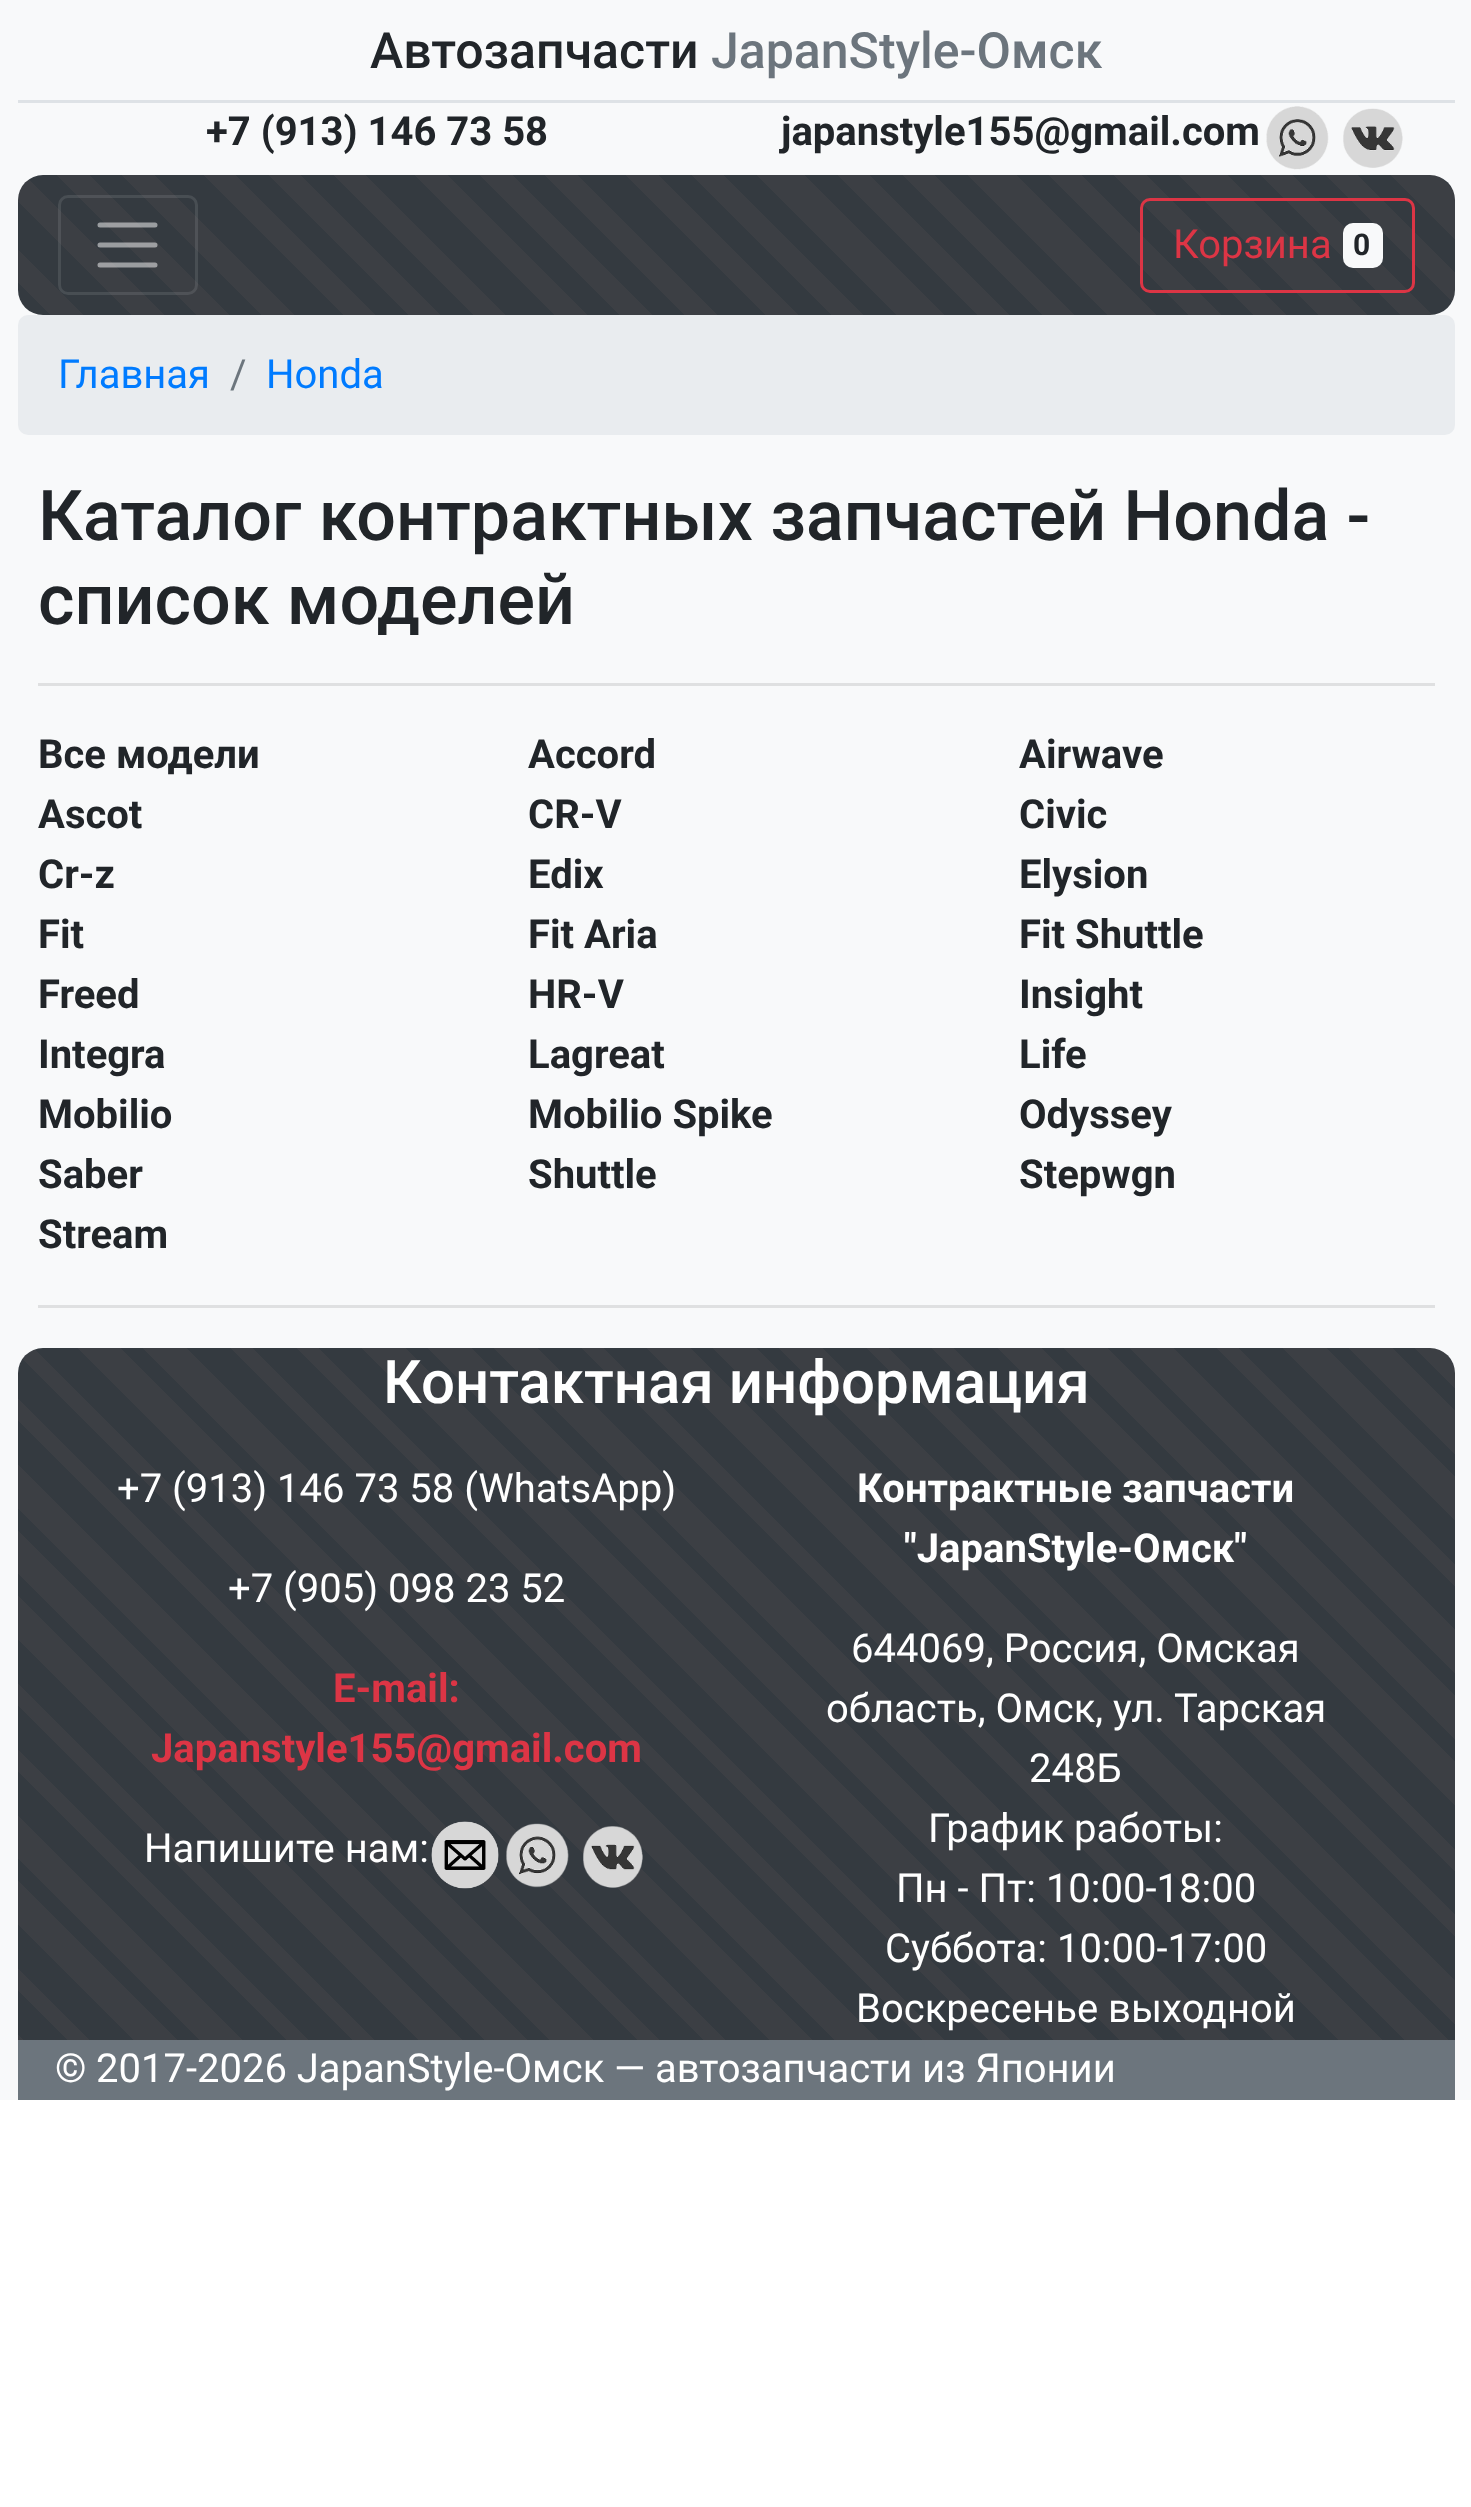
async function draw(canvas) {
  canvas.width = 1471
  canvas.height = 2507
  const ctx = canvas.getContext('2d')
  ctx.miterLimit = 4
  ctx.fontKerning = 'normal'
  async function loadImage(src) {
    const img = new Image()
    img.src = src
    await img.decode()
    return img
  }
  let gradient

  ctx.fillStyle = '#fff'
  ctx.fillRect(0, 0, 1471, 2507)
  ctx.fillStyle = '#f8f9fa'
  ctx.fillRect(0, 0, 1471, 2100)
  ctx.fillStyle = '#dee2e6'
  ctx.fillRect(18, 100, 1437, 3)
  ctx.font = '500 50px Roboto'
  ctx.fillStyle = '#212529'
  ctx.fillText('Автозапчасти', 370, 68)
  ctx.fillStyle = '#6c757d'
  ctx.fillText('JapanStyle-Омск', 711, 68)
  ctx.font = 'bold 40px Roboto'
  ctx.fillStyle = '#212529'
  ctx.fillText('+7 (913) 146 73 58', 206, 145)
  ctx.fillText('japanstyle155@gmail.com', 781, 145)
  ctx.drawImage(await loadImage('image0.png'), 1266, 106, 63, 64)
  ctx.drawImage(await loadImage('image1.png'), 1343, 108, 60, 60)
  gradient = ctx.createLinearGradient(342, 639, 1155, -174)
  gradient.addColorStop(0, '#343a40')
  gradient.addColorStop(0.02, '#343a40')
  gradient.addColorStop(0.02, '#3c3f44')
  gradient.addColorStop(0.04, '#3c3f44')
  gradient.addColorStop(0.04, '#343a40')
  gradient.addColorStop(0.07, '#343a40')
  gradient.addColorStop(0.07, '#3c3f44')
  gradient.addColorStop(0.09, '#3c3f44')
  gradient.addColorStop(0.09, '#343a40')
  gradient.addColorStop(0.11, '#343a40')
  gradient.addColorStop(0.11, '#3c3f44')
  gradient.addColorStop(0.13, '#3c3f44')
  gradient.addColorStop(0.13, '#343a40')
  gradient.addColorStop(0.15, '#343a40')
  gradient.addColorStop(0.15, '#3c3f44')
  gradient.addColorStop(0.17, '#3c3f44')
  gradient.addColorStop(0.17, '#343a40')
  gradient.addColorStop(0.2, '#343a40')
  gradient.addColorStop(0.2, '#3c3f44')
  gradient.addColorStop(0.22, '#3c3f44')
  gradient.addColorStop(0.22, '#343a40')
  gradient.addColorStop(0.24, '#343a40')
  gradient.addColorStop(0.24, '#3c3f44')
  gradient.addColorStop(0.26, '#3c3f44')
  gradient.addColorStop(0.26, '#343a40')
  gradient.addColorStop(0.28, '#343a40')
  gradient.addColorStop(0.28, '#3c3f44')
  gradient.addColorStop(0.3, '#3c3f44')
  gradient.addColorStop(0.3, '#343a40')
  gradient.addColorStop(0.33, '#343a40')
  gradient.addColorStop(0.33, '#3c3f44')
  gradient.addColorStop(0.35, '#3c3f44')
  gradient.addColorStop(0.35, '#343a40')
  gradient.addColorStop(0.37, '#343a40')
  gradient.addColorStop(0.37, '#3c3f44')
  gradient.addColorStop(0.39, '#3c3f44')
  gradient.addColorStop(0.39, '#343a40')
  gradient.addColorStop(0.41, '#343a40')
  gradient.addColorStop(0.41, '#3c3f44')
  gradient.addColorStop(0.43, '#3c3f44')
  gradient.addColorStop(0.43, '#343a40')
  gradient.addColorStop(0.46, '#343a40')
  gradient.addColorStop(0.46, '#3c3f44')
  gradient.addColorStop(0.48, '#3c3f44')
  gradient.addColorStop(0.48, '#343a40')
  gradient.addColorStop(0.5, '#343a40')
  gradient.addColorStop(0.5, '#3c3f44')
  gradient.addColorStop(0.52, '#3c3f44')
  gradient.addColorStop(0.52, '#343a40')
  gradient.addColorStop(0.54, '#343a40')
  gradient.addColorStop(0.54, '#3c3f44')
  gradient.addColorStop(0.57, '#3c3f44')
  gradient.addColorStop(0.57, '#343a40')
  gradient.addColorStop(0.59, '#343a40')
  gradient.addColorStop(0.59, '#3c3f44')
  gradient.addColorStop(0.61, '#3c3f44')
  gradient.addColorStop(0.61, '#343a40')
  gradient.addColorStop(0.63, '#343a40')
  gradient.addColorStop(0.63, '#3c3f44')
  gradient.addColorStop(0.65, '#3c3f44')
  gradient.addColorStop(0.65, '#343a40')
  gradient.addColorStop(0.67, '#343a40')
  gradient.addColorStop(0.67, '#3c3f44')
  gradient.addColorStop(0.7, '#3c3f44')
  gradient.addColorStop(0.7, '#343a40')
  gradient.addColorStop(0.72, '#343a40')
  gradient.addColorStop(0.72, '#3c3f44')
  gradient.addColorStop(0.74, '#3c3f44')
  gradient.addColorStop(0.74, '#343a40')
  gradient.addColorStop(0.76, '#343a40')
  gradient.addColorStop(0.76, '#3c3f44')
  gradient.addColorStop(0.78, '#3c3f44')
  gradient.addColorStop(0.78, '#343a40')
  gradient.addColorStop(0.8, '#343a40')
  gradient.addColorStop(0.8, '#3c3f44')
  gradient.addColorStop(0.83, '#3c3f44')
  gradient.addColorStop(0.83, '#343a40')
  gradient.addColorStop(0.85, '#343a40')
  gradient.addColorStop(0.85, '#3c3f44')
  gradient.addColorStop(0.87, '#3c3f44')
  gradient.addColorStop(0.87, '#343a40')
  gradient.addColorStop(0.89, '#343a40')
  gradient.addColorStop(0.89, '#3c3f44')
  gradient.addColorStop(0.91, '#3c3f44')
  gradient.addColorStop(0.91, '#343a40')
  gradient.addColorStop(0.93, '#343a40')
  gradient.addColorStop(0.93, '#3c3f44')
  gradient.addColorStop(0.96, '#3c3f44')
  gradient.addColorStop(0.96, '#343a40')
  gradient.addColorStop(0.98, '#343a40')
  gradient.addColorStop(0.98, '#3c3f44')
  gradient.addColorStop(1, '#3c3f44')
  ctx.fillStyle = gradient
  ctx.beginPath()
  ctx.roundRect(18, 175, 1437, 140, 25)
  ctx.fill()
  ctx.beginPath()
  ctx.roundRect(59.5, 196.5, 137, 97, 8.5)
  ctx.strokeStyle = '#ffffff1a'
  ctx.lineWidth = 3
  ctx.stroke()
  ctx.beginPath()
  ctx.moveTo(100, 225)
  ctx.lineTo(155, 225)
  ctx.moveTo(100, 245)
  ctx.lineTo(155, 245)
  ctx.moveTo(100, 265)
  ctx.lineTo(155, 265)
  ctx.strokeStyle = '#ffffff80'
  ctx.lineWidth = 5
  ctx.lineCap = 'round'
  ctx.stroke()
  ctx.beginPath()
  ctx.roundRect(1141.5, 199.5, 272, 92, 8.5)
  ctx.strokeStyle = '#dc3545'
  ctx.lineWidth = 3
  ctx.stroke()
  ctx.font = '40px Roboto'
  ctx.fillStyle = '#dc3545'
  ctx.fillText('Корзина', 1173, 258)
  ctx.fillStyle = '#f8f9fa'
  ctx.beginPath()
  ctx.roundRect(1343, 223, 40, 45, 10)
  ctx.fill()
  ctx.font = 'bold 30px Roboto'
  ctx.fillStyle = '#212529'
  ctx.fillText('0', 1353, 255)
  ctx.fillStyle = '#e9ecef'
  ctx.beginPath()
  ctx.roundRect(18, 315, 1437, 120, 10)
  ctx.fill()
  ctx.font = '40px Roboto'
  ctx.fillStyle = '#007bff'
  ctx.fillText('Главная', 58, 388)
  ctx.fillStyle = '#6c757d'
  ctx.fillText('/', 230, 388)
  ctx.fillStyle = '#007bff'
  ctx.fillText('Honda', 266, 388)
  ctx.font = '500 70px Roboto'
  ctx.fillStyle = '#212529'
  ctx.fillText('Каталог контрактных запчастей Honda -', 38, 540)
  ctx.fillText('список моделей', 38, 624)
  ctx.fillStyle = '#dfe0e1'
  ctx.fillRect(38, 683, 1397, 3)
  ctx.font = 'bold 40px Roboto'
  ctx.fillStyle = '#212529'
  ctx.fillText('Все модели', 38, 768)
  ctx.fillText('Accord', 528, 768)
  ctx.fillText('Airwave', 1019, 768)
  ctx.fillText('Ascot', 38, 828)
  ctx.fillText('CR-V', 528, 828)
  ctx.fillText('Civic', 1019, 828)
  ctx.fillText('Cr-z', 38, 888)
  ctx.fillText('Edix', 528, 888)
  ctx.fillText('Elysion', 1019, 888)
  ctx.fillText('Fit', 38, 948)
  ctx.fillText('Fit Aria', 528, 948)
  ctx.fillText('Fit Shuttle', 1019, 948)
  ctx.fillText('Freed', 38, 1008)
  ctx.fillText('HR-V', 528, 1008)
  ctx.fillText('Insight', 1019, 1008)
  ctx.fillText('Integra', 38, 1068)
  ctx.fillText('Lagreat', 528, 1068)
  ctx.fillText('Life', 1019, 1068)
  ctx.fillText('Mobilio', 38, 1128)
  ctx.fillText('Mobilio Spike', 528, 1128)
  ctx.fillText('Odyssey', 1019, 1128)
  ctx.fillText('Saber', 38, 1188)
  ctx.fillText('Shuttle', 528, 1188)
  ctx.fillText('Stepwgn', 1019, 1188)
  ctx.fillText('Stream', 38, 1248)
  ctx.fillStyle = '#dfe0e1'
  ctx.fillRect(38, 1305, 1397, 3)
  gradient = ctx.createLinearGradient(189, 2271, 1285, 1175)
  gradient.addColorStop(0, '#343a40')
  gradient.addColorStop(0.02, '#343a40')
  gradient.addColorStop(0.02, '#3c3f44')
  gradient.addColorStop(0.03, '#3c3f44')
  gradient.addColorStop(0.03, '#343a40')
  gradient.addColorStop(0.05, '#343a40')
  gradient.addColorStop(0.05, '#3c3f44')
  gradient.addColorStop(0.06, '#3c3f44')
  gradient.addColorStop(0.06, '#343a40')
  gradient.addColorStop(0.08, '#343a40')
  gradient.addColorStop(0.08, '#3c3f44')
  gradient.addColorStop(0.1, '#3c3f44')
  gradient.addColorStop(0.1, '#343a40')
  gradient.addColorStop(0.11, '#343a40')
  gradient.addColorStop(0.11, '#3c3f44')
  gradient.addColorStop(0.13, '#3c3f44')
  gradient.addColorStop(0.13, '#343a40')
  gradient.addColorStop(0.15, '#343a40')
  gradient.addColorStop(0.15, '#3c3f44')
  gradient.addColorStop(0.16, '#3c3f44')
  gradient.addColorStop(0.16, '#343a40')
  gradient.addColorStop(0.18, '#343a40')
  gradient.addColorStop(0.18, '#3c3f44')
  gradient.addColorStop(0.19, '#3c3f44')
  gradient.addColorStop(0.19, '#343a40')
  gradient.addColorStop(0.21, '#343a40')
  gradient.addColorStop(0.21, '#3c3f44')
  gradient.addColorStop(0.23, '#3c3f44')
  gradient.addColorStop(0.23, '#343a40')
  gradient.addColorStop(0.24, '#343a40')
  gradient.addColorStop(0.24, '#3c3f44')
  gradient.addColorStop(0.26, '#3c3f44')
  gradient.addColorStop(0.26, '#343a40')
  gradient.addColorStop(0.27, '#343a40')
  gradient.addColorStop(0.27, '#3c3f44')
  gradient.addColorStop(0.29, '#3c3f44')
  gradient.addColorStop(0.29, '#343a40')
  gradient.addColorStop(0.31, '#343a40')
  gradient.addColorStop(0.31, '#3c3f44')
  gradient.addColorStop(0.32, '#3c3f44')
  gradient.addColorStop(0.32, '#343a40')
  gradient.addColorStop(0.34, '#343a40')
  gradient.addColorStop(0.34, '#3c3f44')
  gradient.addColorStop(0.35, '#3c3f44')
  gradient.addColorStop(0.35, '#343a40')
  gradient.addColorStop(0.37, '#343a40')
  gradient.addColorStop(0.37, '#3c3f44')
  gradient.addColorStop(0.39, '#3c3f44')
  gradient.addColorStop(0.39, '#343a40')
  gradient.addColorStop(0.4, '#343a40')
  gradient.addColorStop(0.4, '#3c3f44')
  gradient.addColorStop(0.42, '#3c3f44')
  gradient.addColorStop(0.42, '#343a40')
  gradient.addColorStop(0.44, '#343a40')
  gradient.addColorStop(0.44, '#3c3f44')
  gradient.addColorStop(0.45, '#3c3f44')
  gradient.addColorStop(0.45, '#343a40')
  gradient.addColorStop(0.47, '#343a40')
  gradient.addColorStop(0.47, '#3c3f44')
  gradient.addColorStop(0.48, '#3c3f44')
  gradient.addColorStop(0.48, '#343a40')
  gradient.addColorStop(0.5, '#343a40')
  gradient.addColorStop(0.5, '#3c3f44')
  gradient.addColorStop(0.52, '#3c3f44')
  gradient.addColorStop(0.52, '#343a40')
  gradient.addColorStop(0.53, '#343a40')
  gradient.addColorStop(0.53, '#3c3f44')
  gradient.addColorStop(0.55, '#3c3f44')
  gradient.addColorStop(0.55, '#343a40')
  gradient.addColorStop(0.56, '#343a40')
  gradient.addColorStop(0.56, '#3c3f44')
  gradient.addColorStop(0.58, '#3c3f44')
  gradient.addColorStop(0.58, '#343a40')
  gradient.addColorStop(0.6, '#343a40')
  gradient.addColorStop(0.6, '#3c3f44')
  gradient.addColorStop(0.61, '#3c3f44')
  gradient.addColorStop(0.61, '#343a40')
  gradient.addColorStop(0.63, '#343a40')
  gradient.addColorStop(0.63, '#3c3f44')
  gradient.addColorStop(0.65, '#3c3f44')
  gradient.addColorStop(0.65, '#343a40')
  gradient.addColorStop(0.66, '#343a40')
  gradient.addColorStop(0.66, '#3c3f44')
  gradient.addColorStop(0.68, '#3c3f44')
  gradient.addColorStop(0.68, '#343a40')
  gradient.addColorStop(0.69, '#343a40')
  gradient.addColorStop(0.69, '#3c3f44')
  gradient.addColorStop(0.71, '#3c3f44')
  gradient.addColorStop(0.71, '#343a40')
  gradient.addColorStop(0.73, '#343a40')
  gradient.addColorStop(0.73, '#3c3f44')
  gradient.addColorStop(0.74, '#3c3f44')
  gradient.addColorStop(0.74, '#343a40')
  gradient.addColorStop(0.76, '#343a40')
  gradient.addColorStop(0.76, '#3c3f44')
  gradient.addColorStop(0.77, '#3c3f44')
  gradient.addColorStop(0.77, '#343a40')
  gradient.addColorStop(0.79, '#343a40')
  gradient.addColorStop(0.79, '#3c3f44')
  gradient.addColorStop(0.81, '#3c3f44')
  gradient.addColorStop(0.81, '#343a40')
  gradient.addColorStop(0.82, '#343a40')
  gradient.addColorStop(0.82, '#3c3f44')
  gradient.addColorStop(0.84, '#3c3f44')
  gradient.addColorStop(0.84, '#343a40')
  gradient.addColorStop(0.85, '#343a40')
  gradient.addColorStop(0.85, '#3c3f44')
  gradient.addColorStop(0.87, '#3c3f44')
  gradient.addColorStop(0.87, '#343a40')
  gradient.addColorStop(0.89, '#343a40')
  gradient.addColorStop(0.89, '#3c3f44')
  gradient.addColorStop(0.9, '#3c3f44')
  gradient.addColorStop(0.9, '#343a40')
  gradient.addColorStop(0.92, '#343a40')
  gradient.addColorStop(0.92, '#3c3f44')
  gradient.addColorStop(0.94, '#3c3f44')
  gradient.addColorStop(0.94, '#343a40')
  gradient.addColorStop(0.95, '#343a40')
  gradient.addColorStop(0.95, '#3c3f44')
  gradient.addColorStop(0.97, '#3c3f44')
  gradient.addColorStop(0.97, '#343a40')
  gradient.addColorStop(0.98, '#343a40')
  gradient.addColorStop(0.98, '#3c3f44')
  gradient.addColorStop(1, '#3c3f44')
  ctx.fillStyle = gradient
  ctx.beginPath()
  ctx.roundRect(18, 1348, 1437, 752, 25)
  ctx.fill()
  ctx.font = '500 60px Roboto'
  ctx.fillStyle = '#fff'
  ctx.fillText('Контактная информация', 383, 1403)
  ctx.font = '40px Roboto'
  ctx.fillText('+7 (913) 146 73 58 (WhatsApp)', 117, 1502)
  ctx.fillText('+7 (905) 098 23 52', 228, 1602)
  ctx.font = 'bold 40px Roboto'
  ctx.fillStyle = '#dc3545'
  ctx.fillText('E-mail:', 333, 1702)
  ctx.fillText('Japanstyle155@gmail.com', 151, 1762)
  ctx.font = '40px Roboto'
  ctx.fillStyle = '#fff'
  ctx.fillText('Напишите нам:', 144, 1862)
  ctx.drawImage(await loadImage('image2.png'), 431, 1821, 68, 68)
  ctx.drawImage(await loadImage('image3.png'), 506, 1823, 63, 65)
  ctx.drawImage(await loadImage('image4.png'), 583, 1826, 60, 62)
  ctx.font = 'bold 40px Roboto'
  ctx.fillText('Контрактные запчасти', 857, 1502)
  ctx.fillText('"JapanStyle-Омск"', 904, 1562)
  ctx.font = '40px Roboto'
  ctx.fillText('644069, Россия, Омская', 851, 1662)
  ctx.fillText('область, Омск, ул. Тарская', 826, 1722)
  ctx.fillText('248Б', 1029, 1782)
  ctx.fillText('График работы:', 928, 1842)
  ctx.fillText('Пн - Пт: 10:00-18:00', 896, 1902)
  ctx.fillText('Суббота: 10:00-17:00', 885, 1962)
  ctx.fillText('Воскресенье выходной', 856, 2022)
  ctx.fillStyle = '#6c757d'
  ctx.fillRect(18, 2040, 1437, 60)
  ctx.wordSpacing = '-0.25px'
  ctx.fillStyle = '#fff'
  ctx.fillText('© 2017-2026 JapanStyle-Омск — автозапчасти из Японии', 55, 2082)
}

draw(document.querySelector('canvas'))
